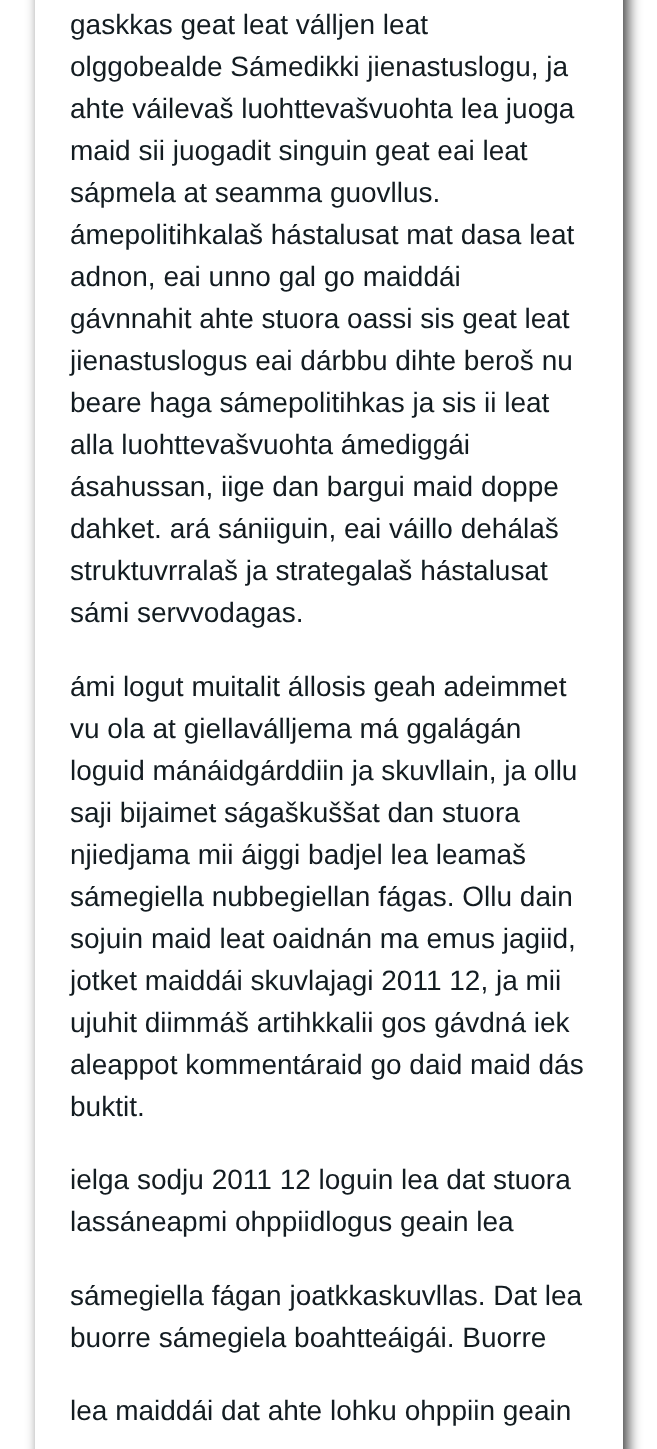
async function draw(canvas) {
  canvas.width = 657
  canvas.height = 1449
  const ctx = canvas.getContext('2d')
  ctx.miterLimit = 4
  ctx.fontKerning = 'normal'

  ctx.fillStyle = '#fff'
  ctx.fillRect(0, 0, 657, 1449)
  ctx.save()
  ctx.beginPath()
  ctx.moveTo(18, 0)
  ctx.lineTo(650, 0)
  ctx.lineTo(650, 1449)
  ctx.lineTo(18, 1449)
  ctx.closePath()
  ctx.moveTo(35, -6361)
  ctx.lineTo(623, -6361)
  ctx.lineTo(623, 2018)
  ctx.lineTo(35, 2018)
  ctx.closePath()
  ctx.clip('evenodd')
  ctx.fillStyle = '#000000bf'
  ctx.filter = 'blur(7px)'
  ctx.beginPath()
  ctx.rect(40, -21, 588, 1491)
  ctx.fill()
  ctx.filter = 'none'
  ctx.restore()
  ctx.font = '28px Liberation Sans'
  ctx.fillStyle = '#131c21'
  ctx.fillText('gaskkas geat leat válljen leat', 70, 34)
  ctx.fillText('olggobealde Sámedikki jienastuslogu, ja', 70, 76)
  ctx.fillText('ahte váilevaš luohttevašvuohta lea juoga', 70, 118)
  ctx.fillText('maid sii juogadit singuin geat eai leat', 70, 160)
  ctx.fillText('sápmela at seamma guovllus.', 70, 202)
  ctx.fillText('ámepolitihkalaš hástalusat mat dasa leat', 70, 244)
  ctx.fillText('adnon, eai unno gal go maiddái', 70, 286)
  ctx.fillText('gávnnahit ahte stuora oassi sis geat leat', 70, 328)
  ctx.fillText('jienastuslogus eai dárbbu dihte beroš nu', 70, 370)
  ctx.fillText('beare haga sámepolitihkas ja sis ii leat', 70, 412)
  ctx.fillText('alla luohttevašvuohta ámediggái', 70, 454)
  ctx.fillText('ásahussan, iige dan bargui maid doppe', 70, 496)
  ctx.fillText('dahket. ará sániiguin, eai váillo dehálaš', 70, 538)
  ctx.fillText('struktuvrralaš ja strategalaš hástalusat', 70, 580)
  ctx.fillText('sámi servvodagas.', 70, 622)
  ctx.fillText('ámi logut muitalit állosis geah adeimmet', 70, 696)
  ctx.fillText('vu ola at giellaválljema má ggalágán', 70, 738)
  ctx.fillText('loguid mánáidgárddiin ja skuvllain, ja ollu', 70, 780)
  ctx.fillText('saji bijaimet ságaškuššat dan stuora', 70, 822)
  ctx.fillText('njiedjama mii áiggi badjel lea leamaš', 70, 864)
  ctx.fillText('sámegiella nubbegiellan fágas. Ollu dain', 70, 906)
  ctx.fillText('sojuin maid leat oaidnán ma emus jagiid,', 70, 948)
  ctx.fillText('jotket maiddái skuvlajagi 2011 12, ja mii', 70, 990)
  ctx.fillText('ujuhit diimmáš artihkkalii gos gávdná iek', 70, 1032)
  ctx.fillText('aleappot kommentáraid go daid maid dás', 70, 1074)
  ctx.fillText('buktit.', 70, 1116)
  ctx.fillText('ielga sodju 2011 12 loguin lea dat stuora', 70, 1189)
  ctx.fillText('lassáneapmi ohppiidlogus geain lea', 70, 1231)
  ctx.fillText('sámegiella fágan joatkkaskuvllas. Dat lea', 70, 1305)
  ctx.fillText('buorre sámegiela boahtteáigái. Buorre', 70, 1347)
  ctx.fillText('lea maiddái dat ahte lohku ohppiin geain', 70, 1420)
}

draw(document.querySelector('canvas'))
